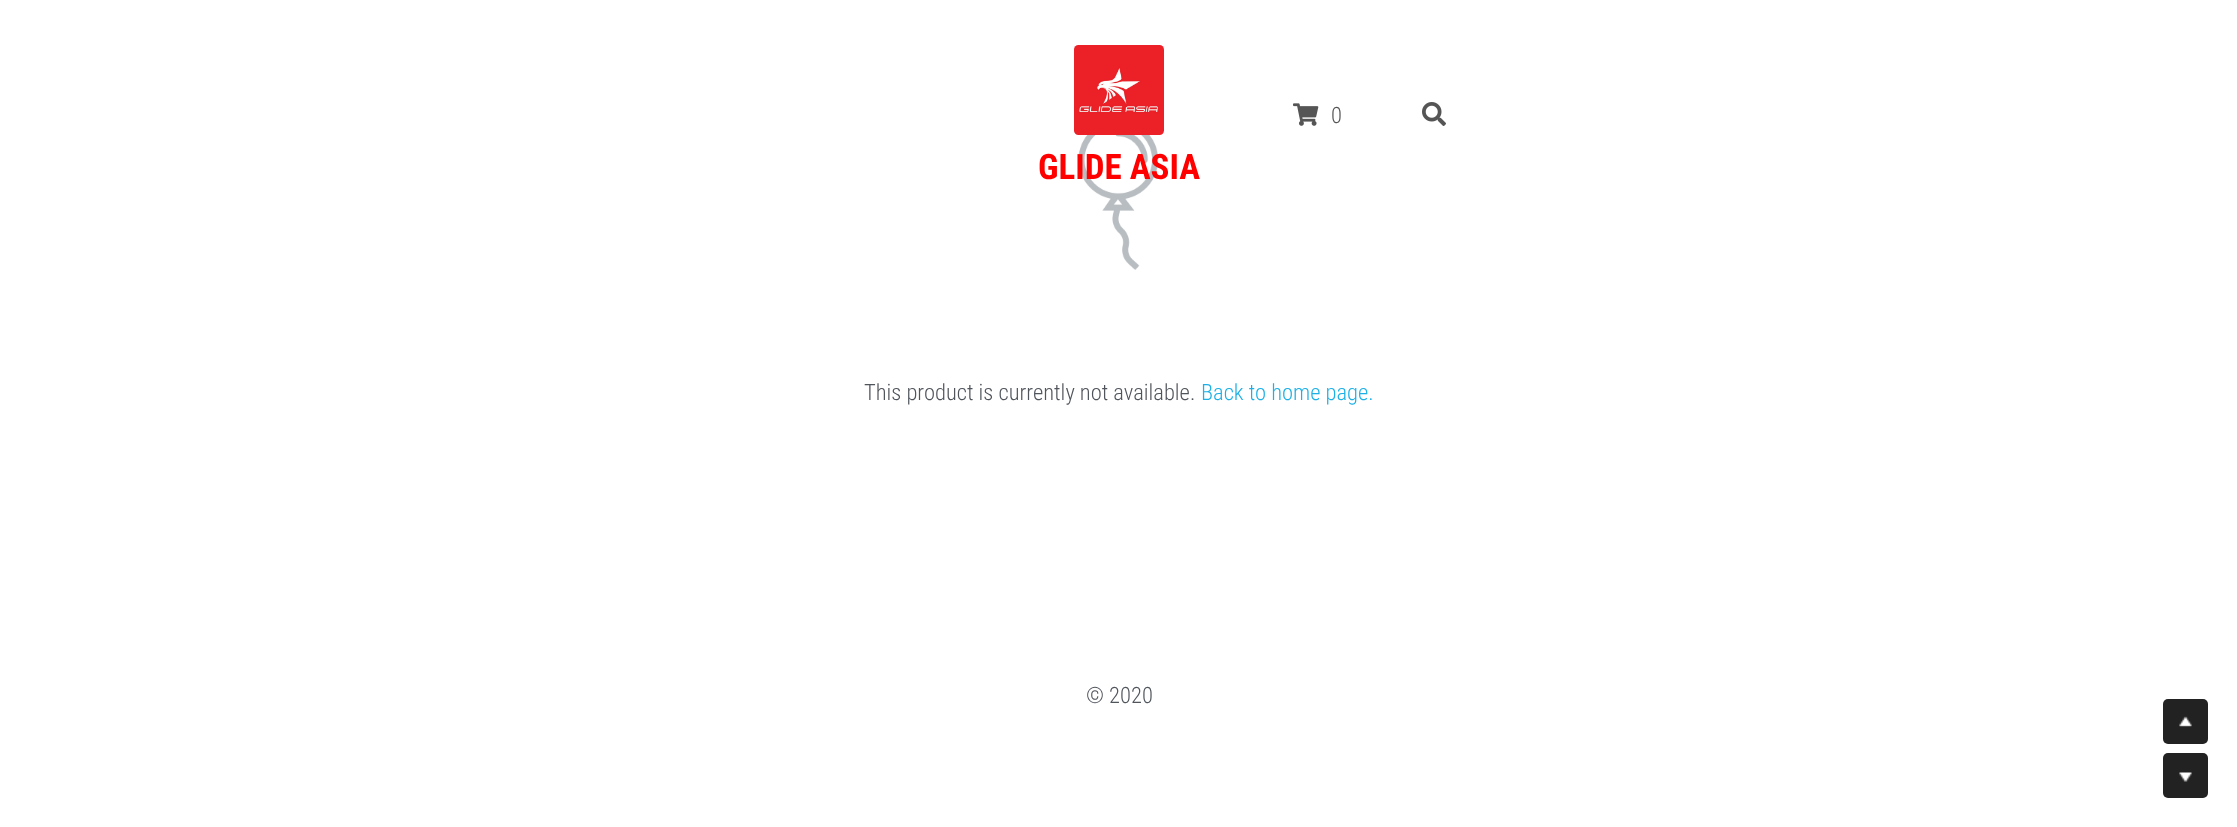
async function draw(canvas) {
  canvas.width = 2237
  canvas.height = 827
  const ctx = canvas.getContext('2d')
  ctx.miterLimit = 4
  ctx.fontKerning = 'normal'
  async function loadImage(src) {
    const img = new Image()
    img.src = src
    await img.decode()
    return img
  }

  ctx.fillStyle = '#fff'
  ctx.fillRect(0, 0, 2237, 827)
  ctx.drawImage(await loadImage('image0.png'), 1293, 103, 26, 23)
  ctx.font = '300 22.5px Roboto Condensed'
  ctx.fillStyle = '#555'
  ctx.fillText('0', 1331, 123)
  ctx.drawImage(await loadImage('image1.png'), 1422, 102, 24, 24)
  ctx.drawImage(await loadImage('image2.png'), 1074, 45, 90, 90)
  ctx.drawImage(await loadImage('image3.png'), 1078, 135, 81, 135)
  ctx.font = 'bold 35px Roboto Condensed'
  ctx.fillStyle = '#f00'
  ctx.fillText('GLIDE ASIA', 1038, 179)
  ctx.font = '300 22.5px Roboto Condensed'
  ctx.fillStyle = '#50555c'
  ctx.fillText('This product is currently not available.', 864, 400)
  ctx.fillStyle = '#1bb0e6'
  ctx.fillText('Back to home page.', 1201, 400)
  ctx.fillStyle = '#50555c'
  ctx.fillText('© 2020', 1086, 703)
  ctx.fillStyle = '#222'
  ctx.beginPath()
  ctx.roundRect(2163, 699, 45, 45, 5)
  ctx.fill()
  ctx.drawImage(await loadImage('image4.png'), 2179, 716, 13, 11)
  ctx.beginPath()
  ctx.roundRect(2163, 753, 45, 45, 5)
  ctx.fill()
  ctx.drawImage(await loadImage('image5.png'), 2179, 772, 13, 10)
}

draw(document.querySelector('canvas'))
